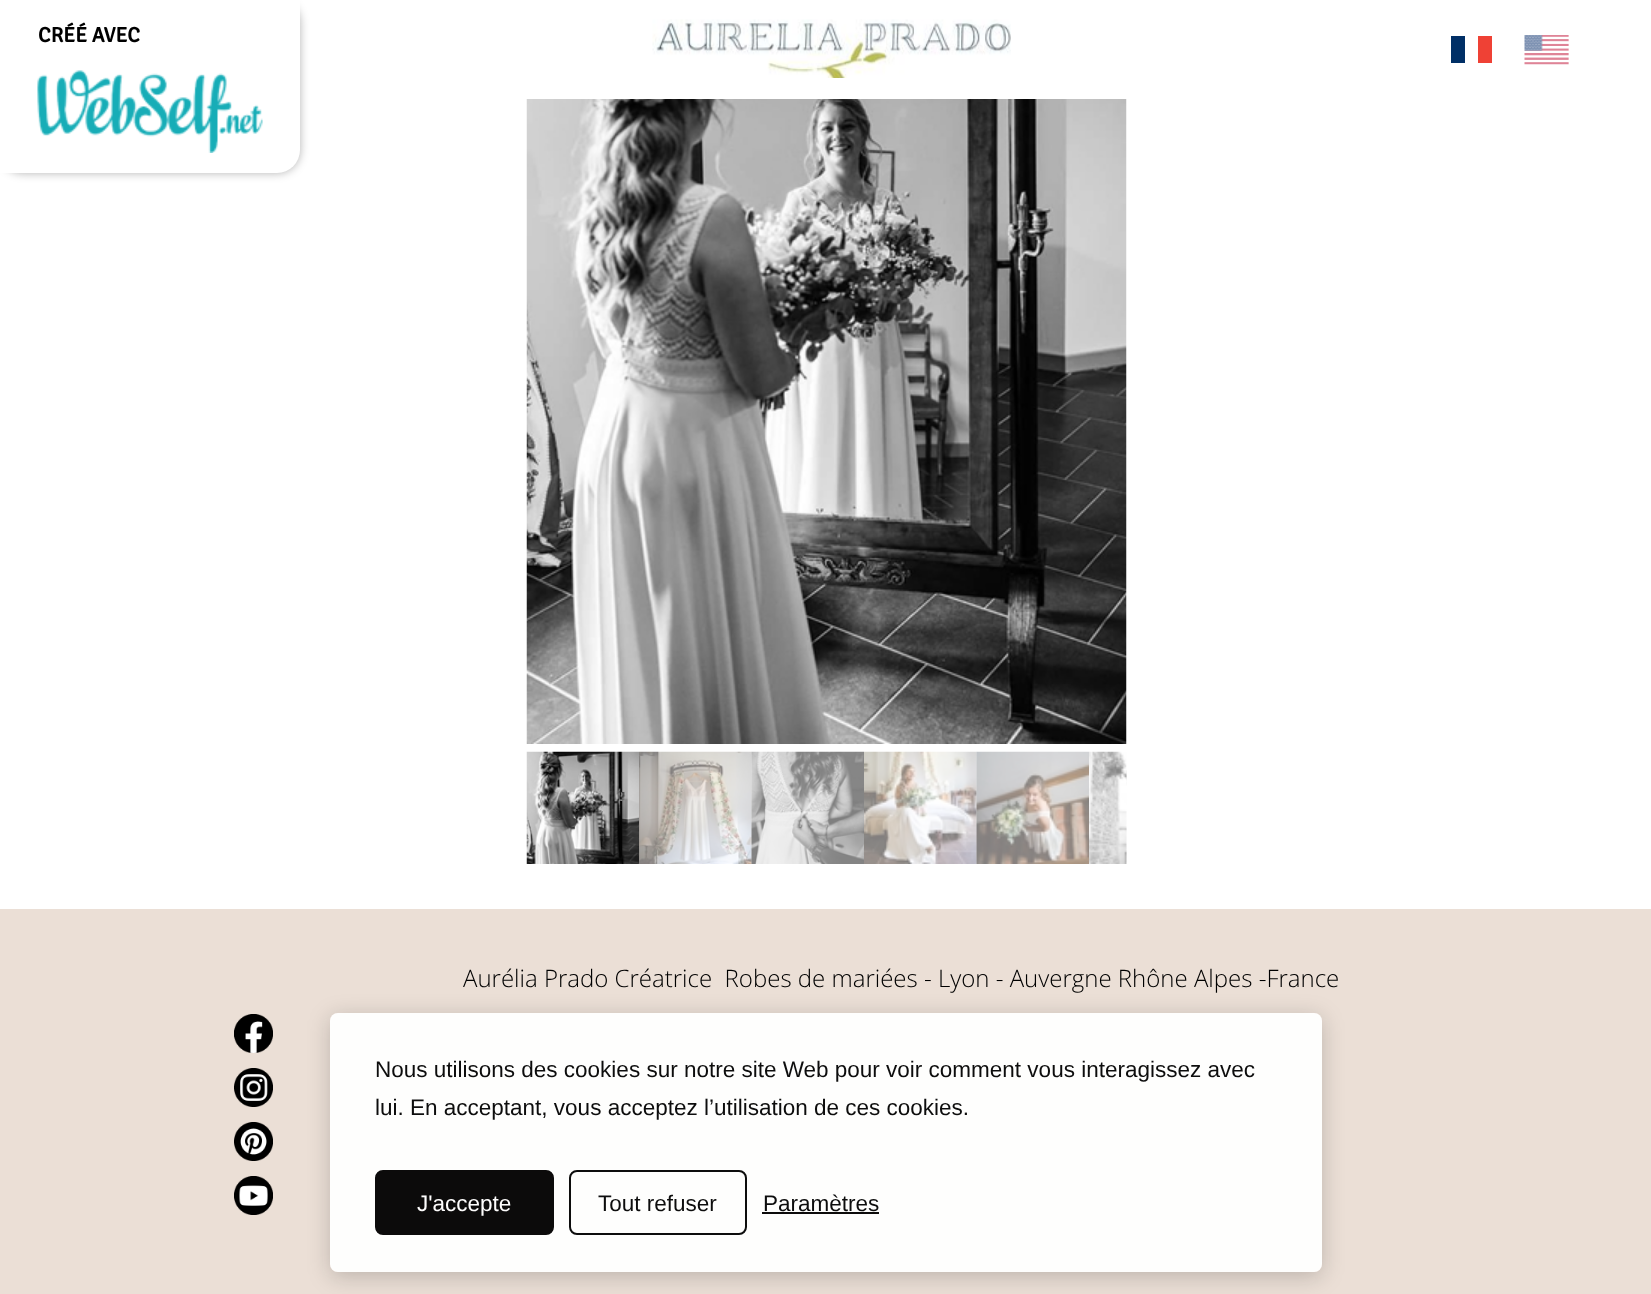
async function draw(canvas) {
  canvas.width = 1651
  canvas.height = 1294
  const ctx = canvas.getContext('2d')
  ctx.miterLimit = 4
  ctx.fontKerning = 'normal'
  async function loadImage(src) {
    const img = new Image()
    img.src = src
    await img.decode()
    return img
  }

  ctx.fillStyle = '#fff'
  ctx.fillRect(0, 0, 1651, 1294)
  ctx.fillStyle = '#0000004d'
  ctx.filter = 'blur(5px)'
  ctx.beginPath()
  ctx.roundRect(0, 0, 300, 173, 23)
  ctx.fill()
  ctx.filter = 'none'
  ctx.fillStyle = '#fff'
  ctx.beginPath()
  ctx.roundRect(0, 0, 300, 173, [0, 0, 23, 0])
  ctx.fill()
  ctx.font = 'bold 21px Signika'
  ctx.fillStyle = '#000'
  ctx.fillText('CRÉÉ AVEC', 38, 42)
  ctx.drawImage(await loadImage('image0.png'), 37, 70, 226, 83)
  ctx.drawImage(await loadImage('image1.png'), 652, 19, 359, 59)
  ctx.fillStyle = '#002f66'
  ctx.fillRect(1451, 36, 14, 27)
  ctx.fillStyle = '#ef4135'
  ctx.fillRect(1478, 36, 14, 27)
  ctx.drawImage(await loadImage('image2.png'), 1524, 35, 45, 30)
  ctx.drawImage(await loadImage('image3.png'), 526, 99, 601, 645)
  ctx.drawImage(await loadImage('image4.png'), 526, 751, 113, 113)
  ctx.drawImage(await loadImage('image5.png'), 639, 751, 113, 113)
  ctx.drawImage(await loadImage('image6.png'), 751, 751, 113, 113)
  ctx.drawImage(await loadImage('image7.png'), 864, 751, 113, 113)
  ctx.drawImage(await loadImage('image8.png'), 976, 751, 113, 113)
  ctx.drawImage(await loadImage('image9.png'), 1089, 751, 38, 113)
  ctx.fillStyle = '#ebdfd6'
  ctx.fillRect(0, 909, 1651, 385)
  ctx.font = '300 24px Open Sans'
  ctx.fillStyle = '#000'
  ctx.fillText('Aurélia Prado Créatrice  Robes de mariées - Lyon - Auvergne Rhône Alpes -France', 463, 987)
  ctx.drawImage(await loadImage('image10.png'), 234, 1014, 39, 39)
  ctx.drawImage(await loadImage('image11.png'), 234, 1068, 39, 39)
  ctx.drawImage(await loadImage('image12.png'), 234, 1122, 39, 39)
  ctx.drawImage(await loadImage('image13.png'), 234, 1176, 39, 39)
  ctx.save()
  ctx.beginPath()
  ctx.moveTo(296, 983)
  ctx.lineTo(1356, 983)
  ctx.lineTo(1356, 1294)
  ctx.lineTo(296, 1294)
  ctx.closePath()
  ctx.moveTo(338, 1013)
  ctx.lineTo(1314, 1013)
  ctx.bezierCurveTo(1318.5, 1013, 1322, 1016.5, 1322, 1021)
  ctx.lineTo(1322, 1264)
  ctx.bezierCurveTo(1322, 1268.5, 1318.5, 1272, 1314, 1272)
  ctx.lineTo(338, 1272)
  ctx.bezierCurveTo(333.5, 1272, 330, 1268.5, 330, 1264)
  ctx.lineTo(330, 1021)
  ctx.bezierCurveTo(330, 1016.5, 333.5, 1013, 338, 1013)
  ctx.closePath()
  ctx.clip('evenodd')
  ctx.fillStyle = '#0c0b0b33'
  ctx.filter = 'blur(11px)'
  ctx.beginPath()
  ctx.roundRect(330, 1017, 992, 260, 8)
  ctx.fill()
  ctx.filter = 'none'
  ctx.restore()
  ctx.fillStyle = '#fffffff2'
  ctx.beginPath()
  ctx.roundRect(330, 1013, 992, 259, 8)
  ctx.fill()
  ctx.font = '22.5px Liberation Sans'
  ctx.fillStyle = '#0d0d0d'
  ctx.fillText('Nous utilisons des cookies sur notre site Web pour voir comment vous interagissez avec', 375, 1077)
  ctx.fillText('lui. En acceptant, vous acceptez l’utilisation de ces cookies.', 375, 1115)
  ctx.fillStyle = '#0c0b0b'
  ctx.beginPath()
  ctx.roundRect(376, 1171, 177, 63, 7)
  ctx.fill()
  ctx.strokeStyle = '#0c0b0b'
  ctx.lineWidth = 2
  ctx.stroke()
  ctx.fillStyle = '#fefdfd'
  ctx.fillText('J\'accepte', 417, 1211)
  ctx.beginPath()
  ctx.roundRect(570, 1171, 176, 63, 7)
  ctx.strokeStyle = '#000000f2'
  ctx.stroke()
  ctx.fillStyle = '#0d0d0d'
  ctx.fillText('Tout refuser', 598, 1211)
  ctx.fillText('Paramètres', 763, 1211)
  ctx.fillStyle = '#0c0b0b'
  ctx.fillRect(762, 1212, 117, 2)
}

draw(document.querySelector('canvas'))
